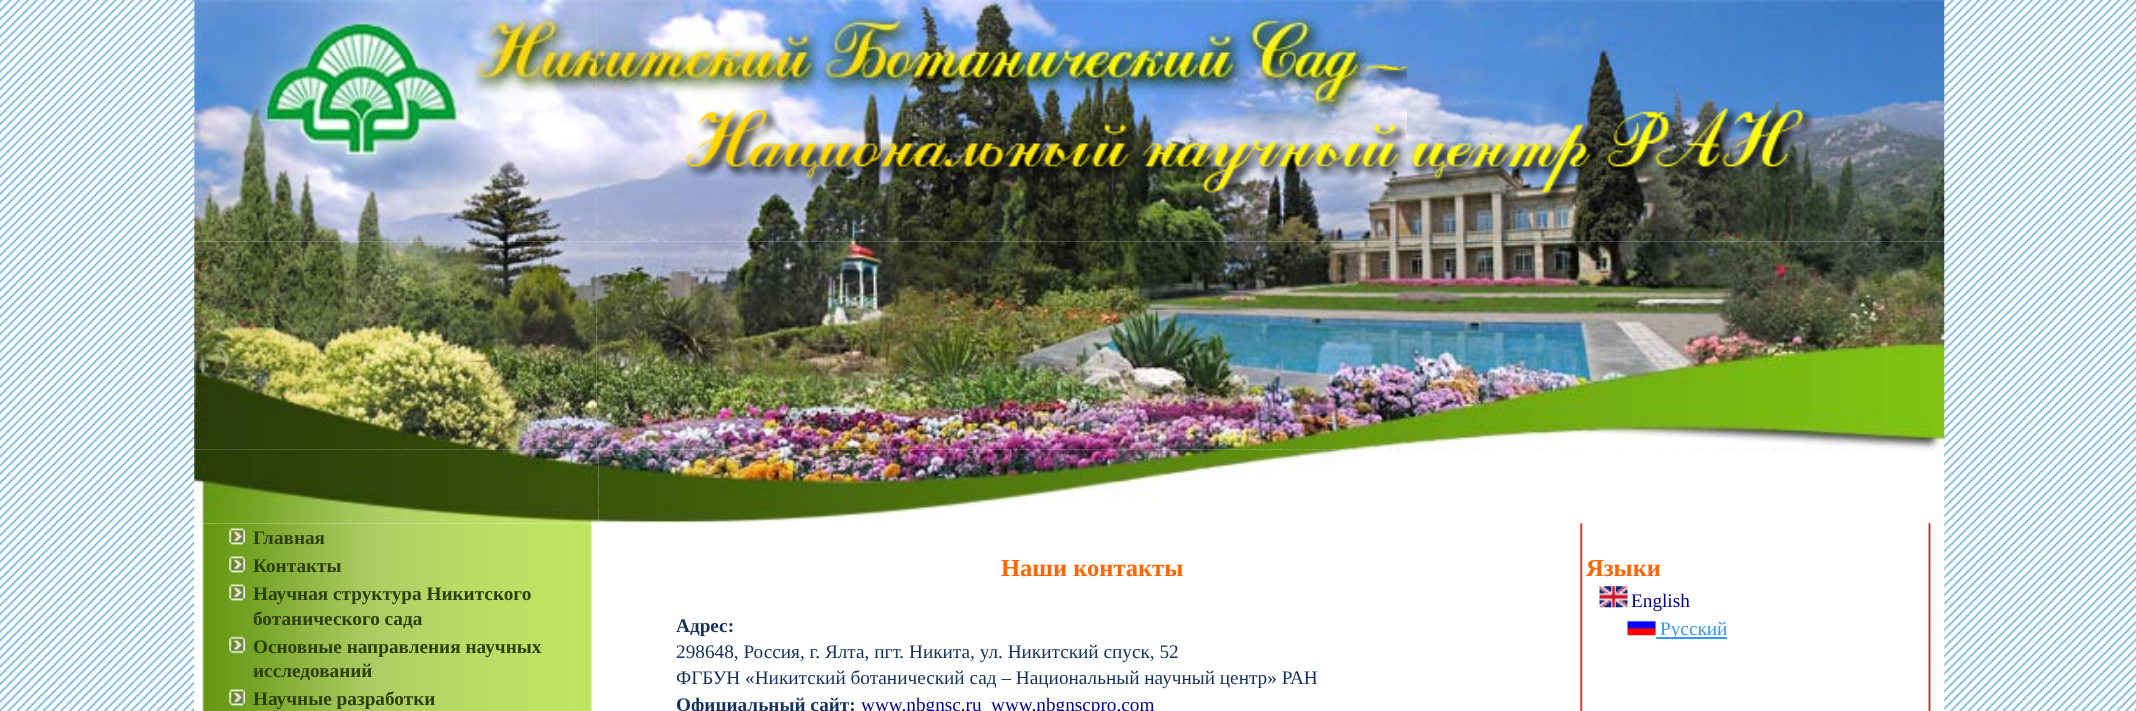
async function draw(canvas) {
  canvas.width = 2136
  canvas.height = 711
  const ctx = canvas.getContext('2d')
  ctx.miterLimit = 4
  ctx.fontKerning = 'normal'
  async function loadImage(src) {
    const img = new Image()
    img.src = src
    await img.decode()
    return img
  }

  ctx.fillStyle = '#fff'
  ctx.fillRect(0, 0, 2136, 711)
  ctx.drawImage(await loadImage('image0.png'), 0, 0, 2136, 711)
  ctx.drawImage(await loadImage('image1.png'), 194, 0, 403, 56)
  ctx.drawImage(await loadImage('image2.png'), 596, 0, 811, 56)
  ctx.drawImage(await loadImage('image3.png'), 1407, 0, 538, 56)
  ctx.drawImage(await loadImage('image4.png'), 194, 56, 403, 186)
  ctx.drawImage(await loadImage('image5.png'), 596, 56, 811, 186)
  ctx.drawImage(await loadImage('image6.png'), 1407, 56, 538, 186)
  ctx.drawImage(await loadImage('image7.png'), 194, 241, 403, 209)
  ctx.drawImage(await loadImage('image8.png'), 596, 241, 811, 209)
  ctx.drawImage(await loadImage('image9.png'), 1407, 241, 538, 209)
  ctx.drawImage(await loadImage('image10.png'), 194, 449, 405, 74)
  ctx.drawImage(await loadImage('image11.png'), 598, 449, 1347, 75)
  ctx.fillRect(194, 523, 1750, 188)
  ctx.drawImage(await loadImage('image12.png'), 202, 523, 390, 188)
  ctx.drawImage(await loadImage('image13.png'), 229, 528, 16, 17)
  ctx.font = 'bold 19.25px Liberation Serif'
  ctx.fillStyle = '#2c3e0a'
  ctx.fillText('Главная', 253, 544)
  ctx.drawImage(await loadImage('image14.png'), 229, 556, 16, 17)
  ctx.fillText('Контакты', 253, 572)
  ctx.drawImage(await loadImage('image13.png'), 229, 584, 16, 17)
  ctx.fillText('Научная структура Никитского', 253, 600)
  ctx.fillText('ботанического сада', 253, 625)
  ctx.drawImage(await loadImage('image15.png'), 229, 636, 16, 18)
  ctx.fillText('Основные направления научных', 253, 653)
  ctx.fillText('исследований', 253, 677)
  ctx.drawImage(await loadImage('image13.png'), 229, 689, 16, 17)
  ctx.fillText('Научные разработки', 253, 705)
  ctx.font = 'bold 24.5px Liberation Serif'
  ctx.fillStyle = '#ff6603'
  ctx.fillText('Наши контакты', 1001, 576)
  ctx.font = 'bold 19.25px Liberation Serif'
  ctx.fillStyle = '#11305b'
  ctx.fillText('Адрес:', 676, 632)
  ctx.font = '19.25px Liberation Serif'
  ctx.fillText('298648, Россия, г. Ялта, пгт. Никита, ул. Никитский спуск, 52', 676, 658)
  ctx.fillText('ФГБУН «Никитский ботанический сад – Национальный научный центр» РАН', 676, 684)
  ctx.font = 'bold 19.25px Liberation Serif'
  ctx.fillText('Официальный сайт:', 676, 711)
  ctx.font = '19.25px Liberation Serif'
  ctx.fillStyle = '#009'
  ctx.fillText('www.nbgnsc.ru', 861, 711)
  ctx.fillText('www.nbgnscpro.com', 991, 711)
  ctx.drawImage(await loadImage('image16.png'), 1579, 523, 366, 188)
  ctx.font = 'bold 24.5px Liberation Serif'
  ctx.fillStyle = '#ff6603'
  ctx.fillText('Языки', 1586, 576)
  ctx.drawImage(await loadImage('image17.png'), 1599, 586, 29, 22)
  ctx.font = '19.25px Liberation Serif'
  ctx.fillStyle = '#009'
  ctx.fillText('English', 1631, 607)
  ctx.drawImage(await loadImage('image18.png'), 1627, 620, 29, 16)
  ctx.fillStyle = '#39f'
  ctx.fillRect(1656, 637, 71, 2)
  ctx.fillText('Русский', 1660, 635)
}

draw(document.querySelector('canvas'))
